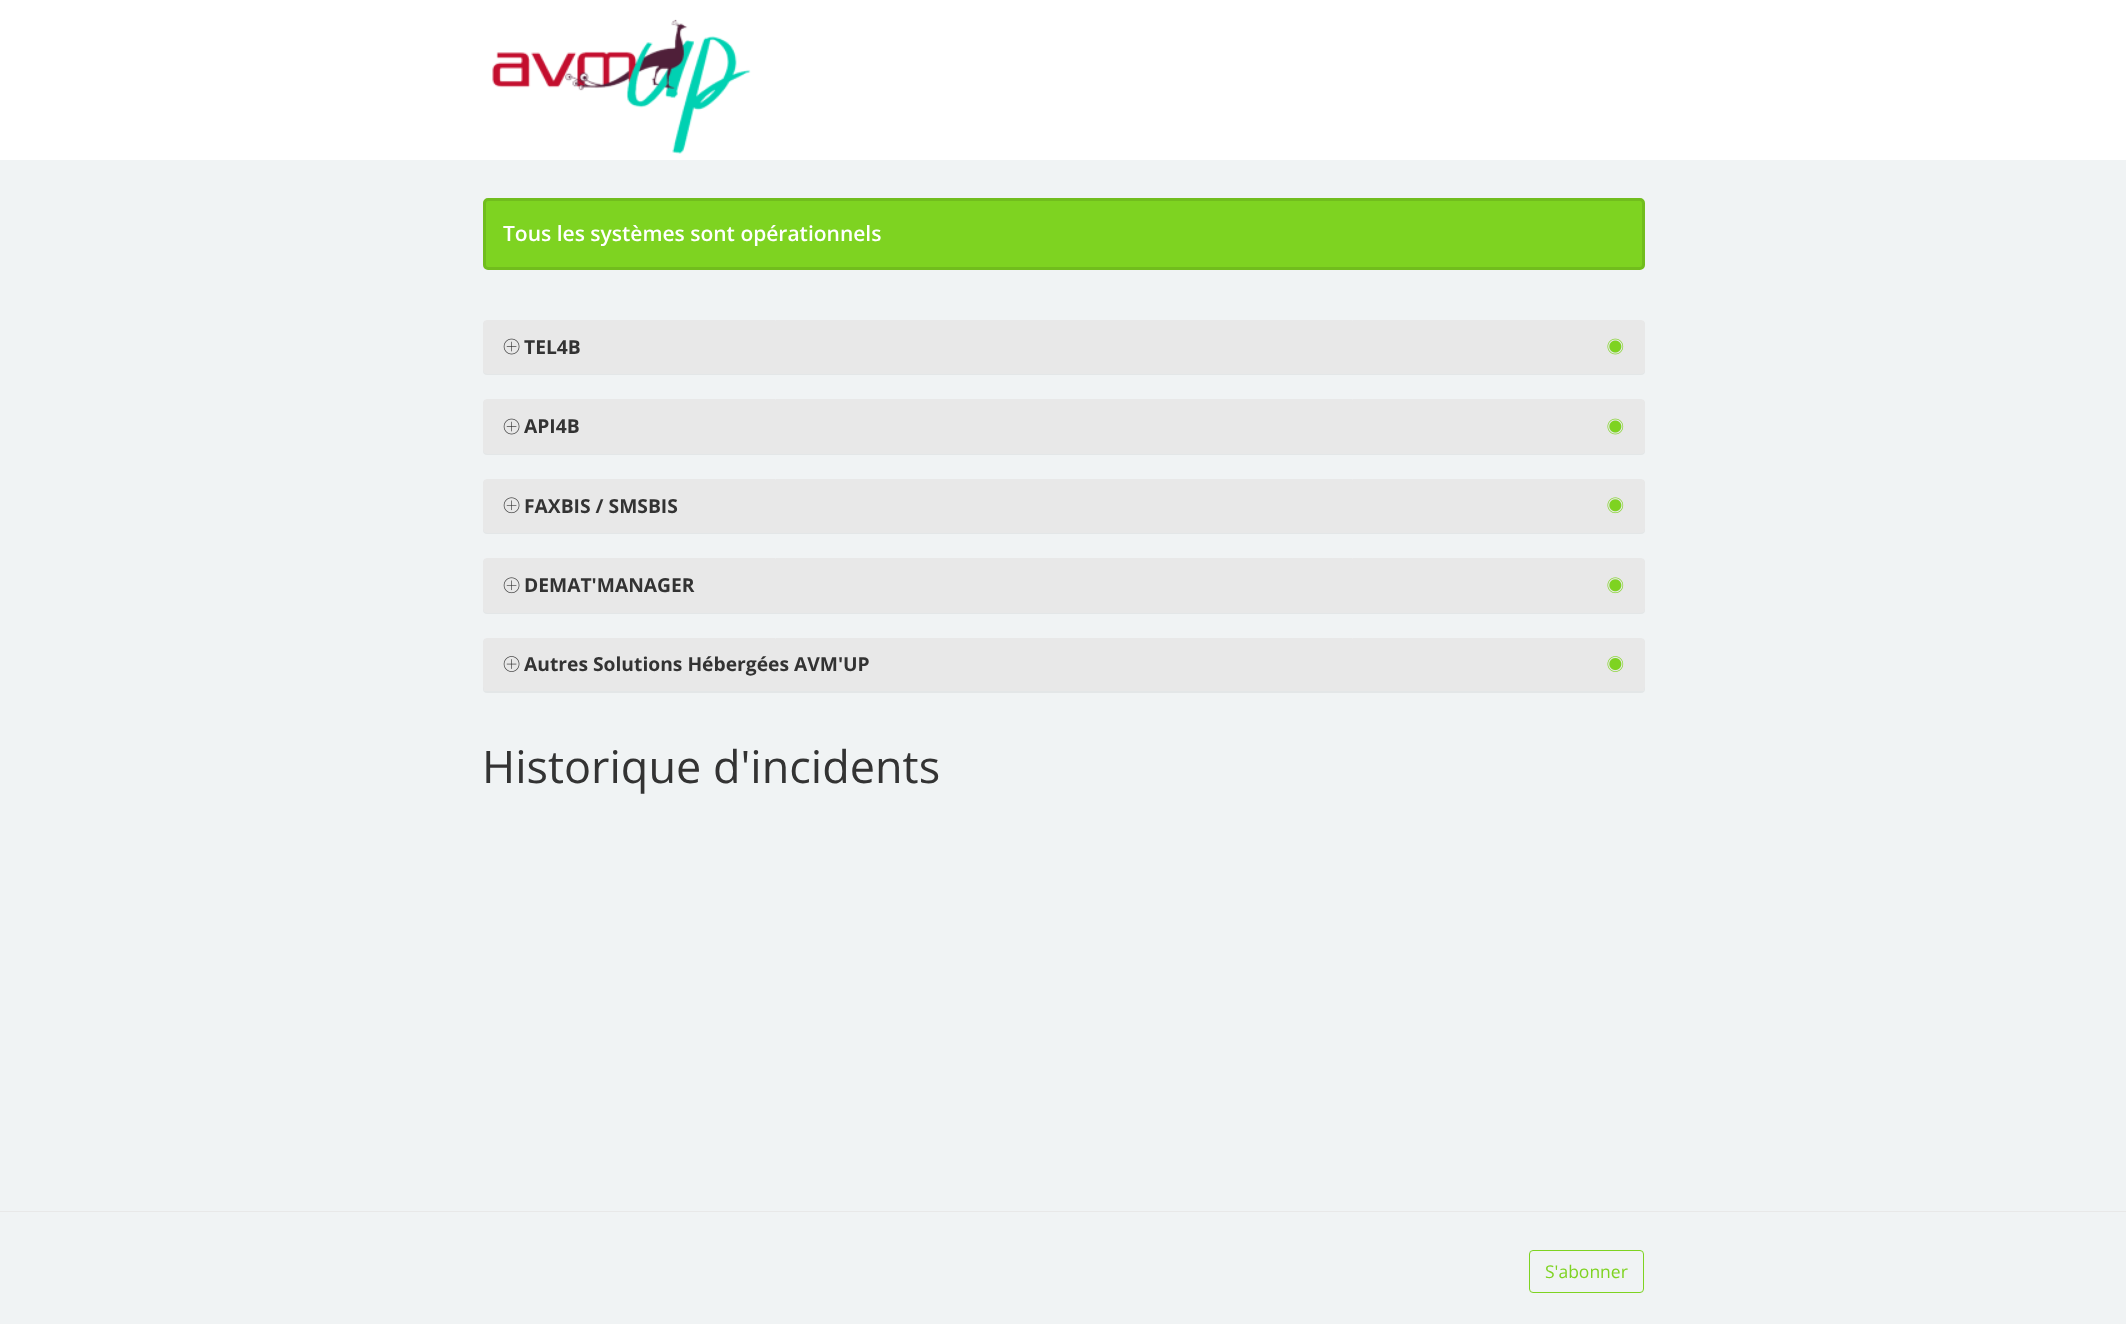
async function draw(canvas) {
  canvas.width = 2126
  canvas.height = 1324
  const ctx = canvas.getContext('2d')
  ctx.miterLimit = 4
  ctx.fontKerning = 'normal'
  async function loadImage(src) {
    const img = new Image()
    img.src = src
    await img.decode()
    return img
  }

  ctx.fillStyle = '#f0f3f4'
  ctx.fillRect(0, 0, 2126, 1324)
  ctx.fillStyle = '#fff'
  ctx.fillRect(0, 0, 2126, 160)
  ctx.drawImage(await loadImage('image0.png'), 492, 19, 259, 135)
  ctx.fillStyle = '#7ed321'
  ctx.beginPath()
  ctx.roundRect(484.5, 199.5, 1159, 69, 3.5)
  ctx.fill()
  ctx.strokeStyle = '#71bd1d'
  ctx.lineWidth = 3
  ctx.stroke()
  ctx.font = '600 21px Open Sans'
  ctx.fillStyle = '#fff'
  ctx.fillText('Tous les systèmes sont opérationnels', 503, 241)
  ctx.fillStyle = '#0000000d'
  ctx.filter = 'blur(0.5px)'
  ctx.beginPath()
  ctx.roundRect(483, 321, 1162, 54, 4)
  ctx.fill()
  ctx.filter = 'none'
  ctx.beginPath()
  ctx.roundRect(483.5, 320.5, 1161, 53, 3.5)
  ctx.strokeStyle = '#e8e8e8'
  ctx.lineWidth = 1
  ctx.stroke()
  ctx.fillStyle = '#e8e8e8'
  ctx.fillRect(484, 321, 1160, 52)
  ctx.drawImage(await loadImage('image1.png'), 503, 338, 17, 17)
  ctx.font = 'bold 19.25px Open Sans'
  ctx.fillStyle = '#333'
  ctx.fillText('TEL4B', 524, 354)
  ctx.drawImage(await loadImage('image2.png'), 1607, 338, 17, 17)
  ctx.fillStyle = '#0000000d'
  ctx.filter = 'blur(0.5px)'
  ctx.beginPath()
  ctx.roundRect(483, 400, 1162, 55, 4)
  ctx.fill()
  ctx.filter = 'none'
  ctx.beginPath()
  ctx.roundRect(483.5, 399.5, 1161, 54, 3.5)
  ctx.stroke()
  ctx.fillStyle = '#e8e8e8'
  ctx.fillRect(484, 400, 1160, 53)
  ctx.drawImage(await loadImage('image1.png'), 503, 418, 17, 17)
  ctx.fillStyle = '#333'
  ctx.fillText('API4B', 524, 433)
  ctx.drawImage(await loadImage('image2.png'), 1607, 418, 17, 17)
  ctx.fillStyle = '#0000000d'
  ctx.filter = 'blur(0.5px)'
  ctx.beginPath()
  ctx.roundRect(483, 480, 1162, 54, 4)
  ctx.fill()
  ctx.filter = 'none'
  ctx.beginPath()
  ctx.roundRect(483.5, 479.5, 1161, 53, 3.5)
  ctx.stroke()
  ctx.fillStyle = '#e8e8e8'
  ctx.fillRect(484, 480, 1160, 52)
  ctx.drawImage(await loadImage('image3.png'), 503, 497, 17, 17)
  ctx.fillStyle = '#333'
  ctx.fillText('FAXBIS / SMSBIS', 524, 513)
  ctx.drawImage(await loadImage('image4.png'), 1607, 497, 17, 17)
  ctx.fillStyle = '#0000000d'
  ctx.filter = 'blur(0.5px)'
  ctx.beginPath()
  ctx.roundRect(483, 559, 1162, 55, 4)
  ctx.fill()
  ctx.filter = 'none'
  ctx.beginPath()
  ctx.roundRect(483.5, 558.5, 1161, 54, 3.5)
  ctx.stroke()
  ctx.fillStyle = '#e8e8e8'
  ctx.fillRect(484, 559, 1160, 53)
  ctx.drawImage(await loadImage('image3.png'), 503, 577, 17, 17)
  ctx.fillStyle = '#333'
  ctx.fillText('DEMAT\'MANAGER', 524, 592)
  ctx.drawImage(await loadImage('image4.png'), 1607, 577, 17, 17)
  ctx.fillStyle = '#0000000d'
  ctx.filter = 'blur(0.5px)'
  ctx.beginPath()
  ctx.roundRect(483, 639, 1162, 54, 4)
  ctx.fill()
  ctx.filter = 'none'
  ctx.beginPath()
  ctx.roundRect(483.5, 638.5, 1161, 52, 3.5)
  ctx.stroke()
  ctx.fillStyle = '#e8e8e8'
  ctx.fillRect(484, 639, 1160, 52)
  ctx.drawImage(await loadImage('image5.png'), 503, 656, 17, 16)
  ctx.fillStyle = '#333'
  ctx.fillText('Autres Solutions Hébergées AVM\'UP', 524, 671)
  ctx.drawImage(await loadImage('image6.png'), 1607, 656, 17, 16)
  ctx.font = '45px Open Sans'
  ctx.fillText('Historique d\'incidents', 482, 783)
  ctx.fillStyle = '#e8e8e8'
  ctx.fillRect(0, 1211, 2126, 1)
  ctx.beginPath()
  ctx.roundRect(1529.5, 1250.5, 114, 42, 3.5)
  ctx.strokeStyle = '#7ed321'
  ctx.stroke()
  ctx.font = '17.5px Open Sans'
  ctx.fillStyle = '#7ed321'
  ctx.fillText('S\'abonner', 1545, 1278)
}

draw(document.querySelector('canvas'))
